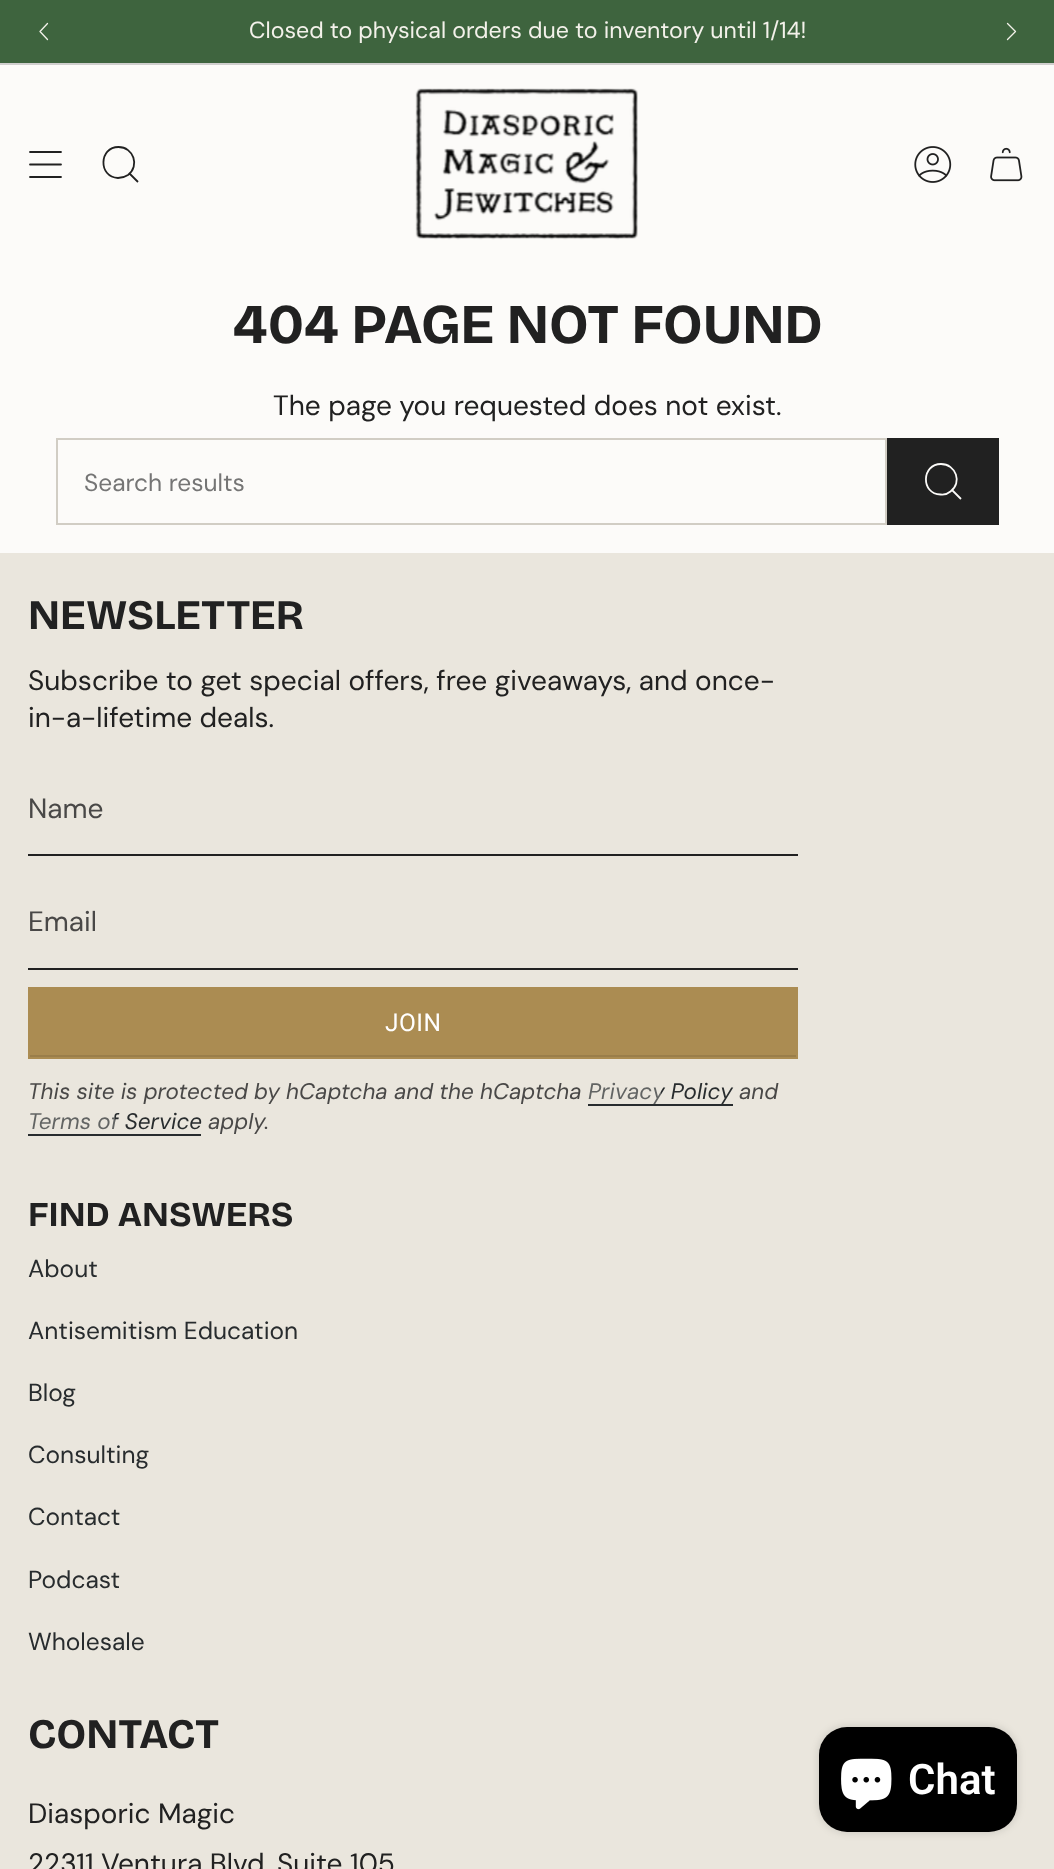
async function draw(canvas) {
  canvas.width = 1054
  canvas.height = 1869
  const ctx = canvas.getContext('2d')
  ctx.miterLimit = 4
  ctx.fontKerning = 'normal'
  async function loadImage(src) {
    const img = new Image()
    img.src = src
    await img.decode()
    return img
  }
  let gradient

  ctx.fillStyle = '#fcfbf9'
  ctx.fillRect(0, 0, 1054, 1869)
  ctx.fillStyle = '#3e643e'
  ctx.fillRect(0, 0, 1054, 63)
  ctx.beginPath()
  ctx.moveTo(47.5, 23.5)
  ctx.lineTo(40, 31.5)
  ctx.lineTo(47.5, 39.5)
  ctx.strokeStyle = '#f3f1ea'
  ctx.lineWidth = 1.3
  ctx.lineCap = 'round'
  ctx.lineJoin = 'round'
  ctx.stroke()
  ctx.font = '23.1px "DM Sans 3"'
  ctx.fillStyle = '#f3f1ea'
  ctx.fillText('Closed to physical orders due to inventory until 1/14!', 249, 38)
  ctx.beginPath()
  ctx.moveTo(1007.5, 23.5)
  ctx.lineTo(1015.5, 31.5)
  ctx.lineTo(1007.5, 39.5)
  ctx.stroke()
  ctx.fillStyle = '#d0cfce'
  ctx.fillRect(0, 63, 1054, 2)
  ctx.beginPath()
  ctx.moveTo(30, 152)
  ctx.lineTo(61, 152)
  ctx.moveTo(30, 164.5)
  ctx.lineTo(61, 164.5)
  ctx.moveTo(30, 177)
  ctx.lineTo(61, 177)
  ctx.strokeStyle = '#212121'
  ctx.lineWidth = 1.8
  ctx.stroke()
  ctx.beginPath()
  ctx.moveTo(118.5, 147)
  ctx.bezierCurveTo(133.5, 147, 140, 166, 128, 175)
  ctx.bezierCurveTo(125, 177, 121.5, 178, 118, 178)
  ctx.bezierCurveTo(98, 177, 99, 147, 118.5, 147)
  ctx.closePath()
  ctx.moveTo(129.5, 173.5)
  ctx.lineTo(138, 182)
  ctx.lineCap = 'butt'
  ctx.lineJoin = 'miter'
  ctx.stroke()
  ctx.drawImage(await loadImage('image0.png'), 415, 88, 223, 152)
  ctx.drawImage(await loadImage('image1.png'), 914, 146, 38, 37)
  ctx.drawImage(await loadImage('image2.png'), 990, 147, 33, 35)
  ctx.font = 'bold 56px "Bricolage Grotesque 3"'
  ctx.fillStyle = '#212121'
  ctx.fillText('404 PAGE NOT FOUND', 233, 343)
  ctx.font = '28px DM Sans'
  ctx.fillText('The page you requested does not exist.', 273, 415)
  ctx.strokeStyle = '#d1cdc4'
  ctx.lineWidth = 2
  ctx.strokeRect(57, 439, 829, 85)
  ctx.font = '24.5px "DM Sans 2"'
  ctx.fillStyle = '#757575'
  ctx.fillText('Search results', 84, 491)
  ctx.fillStyle = '#212121'
  ctx.fillRect(887, 438, 112, 87)
  ctx.beginPath()
  ctx.moveTo(941, 464)
  ctx.bezierCurveTo(956, 464, 962.5, 483, 950.5, 491.5)
  ctx.bezierCurveTo(947.5, 494, 944, 495, 940.5, 494.5)
  ctx.bezierCurveTo(920.5, 494, 921.5, 464, 941, 464)
  ctx.closePath()
  ctx.moveTo(952, 490)
  ctx.lineTo(961, 499)
  ctx.strokeStyle = '#fcfbf9'
  ctx.lineWidth = 1.8
  ctx.stroke()
  ctx.fillStyle = '#eae6dd'
  ctx.fillRect(0, 553, 1054, 1316)
  ctx.font = 'bold 42px Bricolage Grotesque'
  ctx.fillStyle = '#212121'
  ctx.fillText('NEWSLETTER', 28, 629)
  ctx.font = '28px DM Sans'
  ctx.fillText('Subscribe to get special offers, free giveaways, and once-', 28, 690)
  ctx.fillText('in-a-lifetime deals.', 28, 727)
  ctx.fillRect(28, 854, 770, 2)
  ctx.fillStyle = '#494847'
  ctx.fillText('Name', 28, 818)
  ctx.fillStyle = '#212121'
  ctx.fillRect(28, 968, 770, 2)
  ctx.fillStyle = '#494847'
  ctx.fillText('Email', 28, 931)
  ctx.fillStyle = '#ab8c52'
  ctx.fillRect(28, 987, 770, 72)
  ctx.letterSpacing = '0.5px'
  ctx.font = '24.5px Roboto'
  ctx.fillStyle = '#fff'
  ctx.fillText('JOIN', 385, 1031)
  ctx.fillStyle = '#9a7e4a'
  ctx.fillRect(30, 1055, 766, 2)
  ctx.letterSpacing = '0px'
  ctx.font = 'italic 22.4px DM Sans'
  ctx.fillStyle = '#494847'
  ctx.fillText('This site is protected by hCaptcha and the hCaptcha', 28, 1099)
  gradient = ctx.createLinearGradient(588, 1092, 733, 1092)
  gradient.addColorStop(0, '#626463')
  gradient.addColorStop(0.5, '#626463')
  gradient.addColorStop(0.5, '#282c2e')
  gradient.addColorStop(1, '#282c2e')
  ctx.fillStyle = gradient
  ctx.fillText('Privacy Policy', 588, 1099)
  ctx.fillStyle = '#282c2e'
  ctx.fillRect(588, 1104, 145, 2)
  ctx.fillStyle = '#494847'
  ctx.fillText('and', 739, 1099)
  gradient = ctx.createLinearGradient(28, 1121, 202, 1121)
  gradient.addColorStop(0, '#626463')
  gradient.addColorStop(0.5, '#626463')
  gradient.addColorStop(0.5, '#282c2e')
  gradient.addColorStop(1, '#282c2e')
  ctx.fillStyle = gradient
  ctx.fillText('Terms of Service', 28, 1129)
  ctx.fillStyle = '#282c2e'
  ctx.fillRect(28, 1134, 173, 2)
  ctx.fillStyle = '#494847'
  ctx.fillText('apply.', 208, 1129)
  ctx.font = 'bold 35px "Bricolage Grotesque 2"'
  ctx.fillStyle = '#212121'
  ctx.fillText('FIND ANSWERS', 28, 1226)
  ctx.font = '24.5px "DM Sans 2"'
  ctx.fillStyle = '#282c2e'
  ctx.fillText('About', 28, 1277)
  ctx.fillText('Antisemitism Education', 28, 1339)
  ctx.fillText('Blog', 28, 1401)
  ctx.fillText('Consulting', 28, 1463)
  ctx.fillText('Contact', 28, 1525)
  ctx.fillText('Podcast', 28, 1588)
  ctx.fillText('Wholesale', 28, 1650)
  ctx.font = 'bold 42px Bricolage Grotesque'
  ctx.fillStyle = '#212121'
  ctx.fillText('CONTACT', 28, 1748)
  ctx.font = '28px DM Sans'
  ctx.fillText('Diasporic Magic', 28, 1823)
  ctx.fillText('22311 Ventura Blvd, Suite 105', 28, 1873)
  ctx.fillStyle = '#00000026'
  ctx.filter = 'blur(4.5px)'
  ctx.beginPath()
  ctx.roundRect(819, 1727, 198, 105, 28)
  ctx.fill()
  ctx.filter = 'none'
  ctx.fillStyle = '#000'
  ctx.beginPath()
  ctx.roundRect(819, 1727, 198, 105, 28)
  ctx.fill()
  ctx.drawImage(await loadImage('image3.png'), 841, 1758, 51, 52)
  ctx.font = '600 42px Roboto'
  ctx.fillStyle = '#fff'
  ctx.fillText('Chat', 908, 1794)
}

draw(document.querySelector('canvas'))
